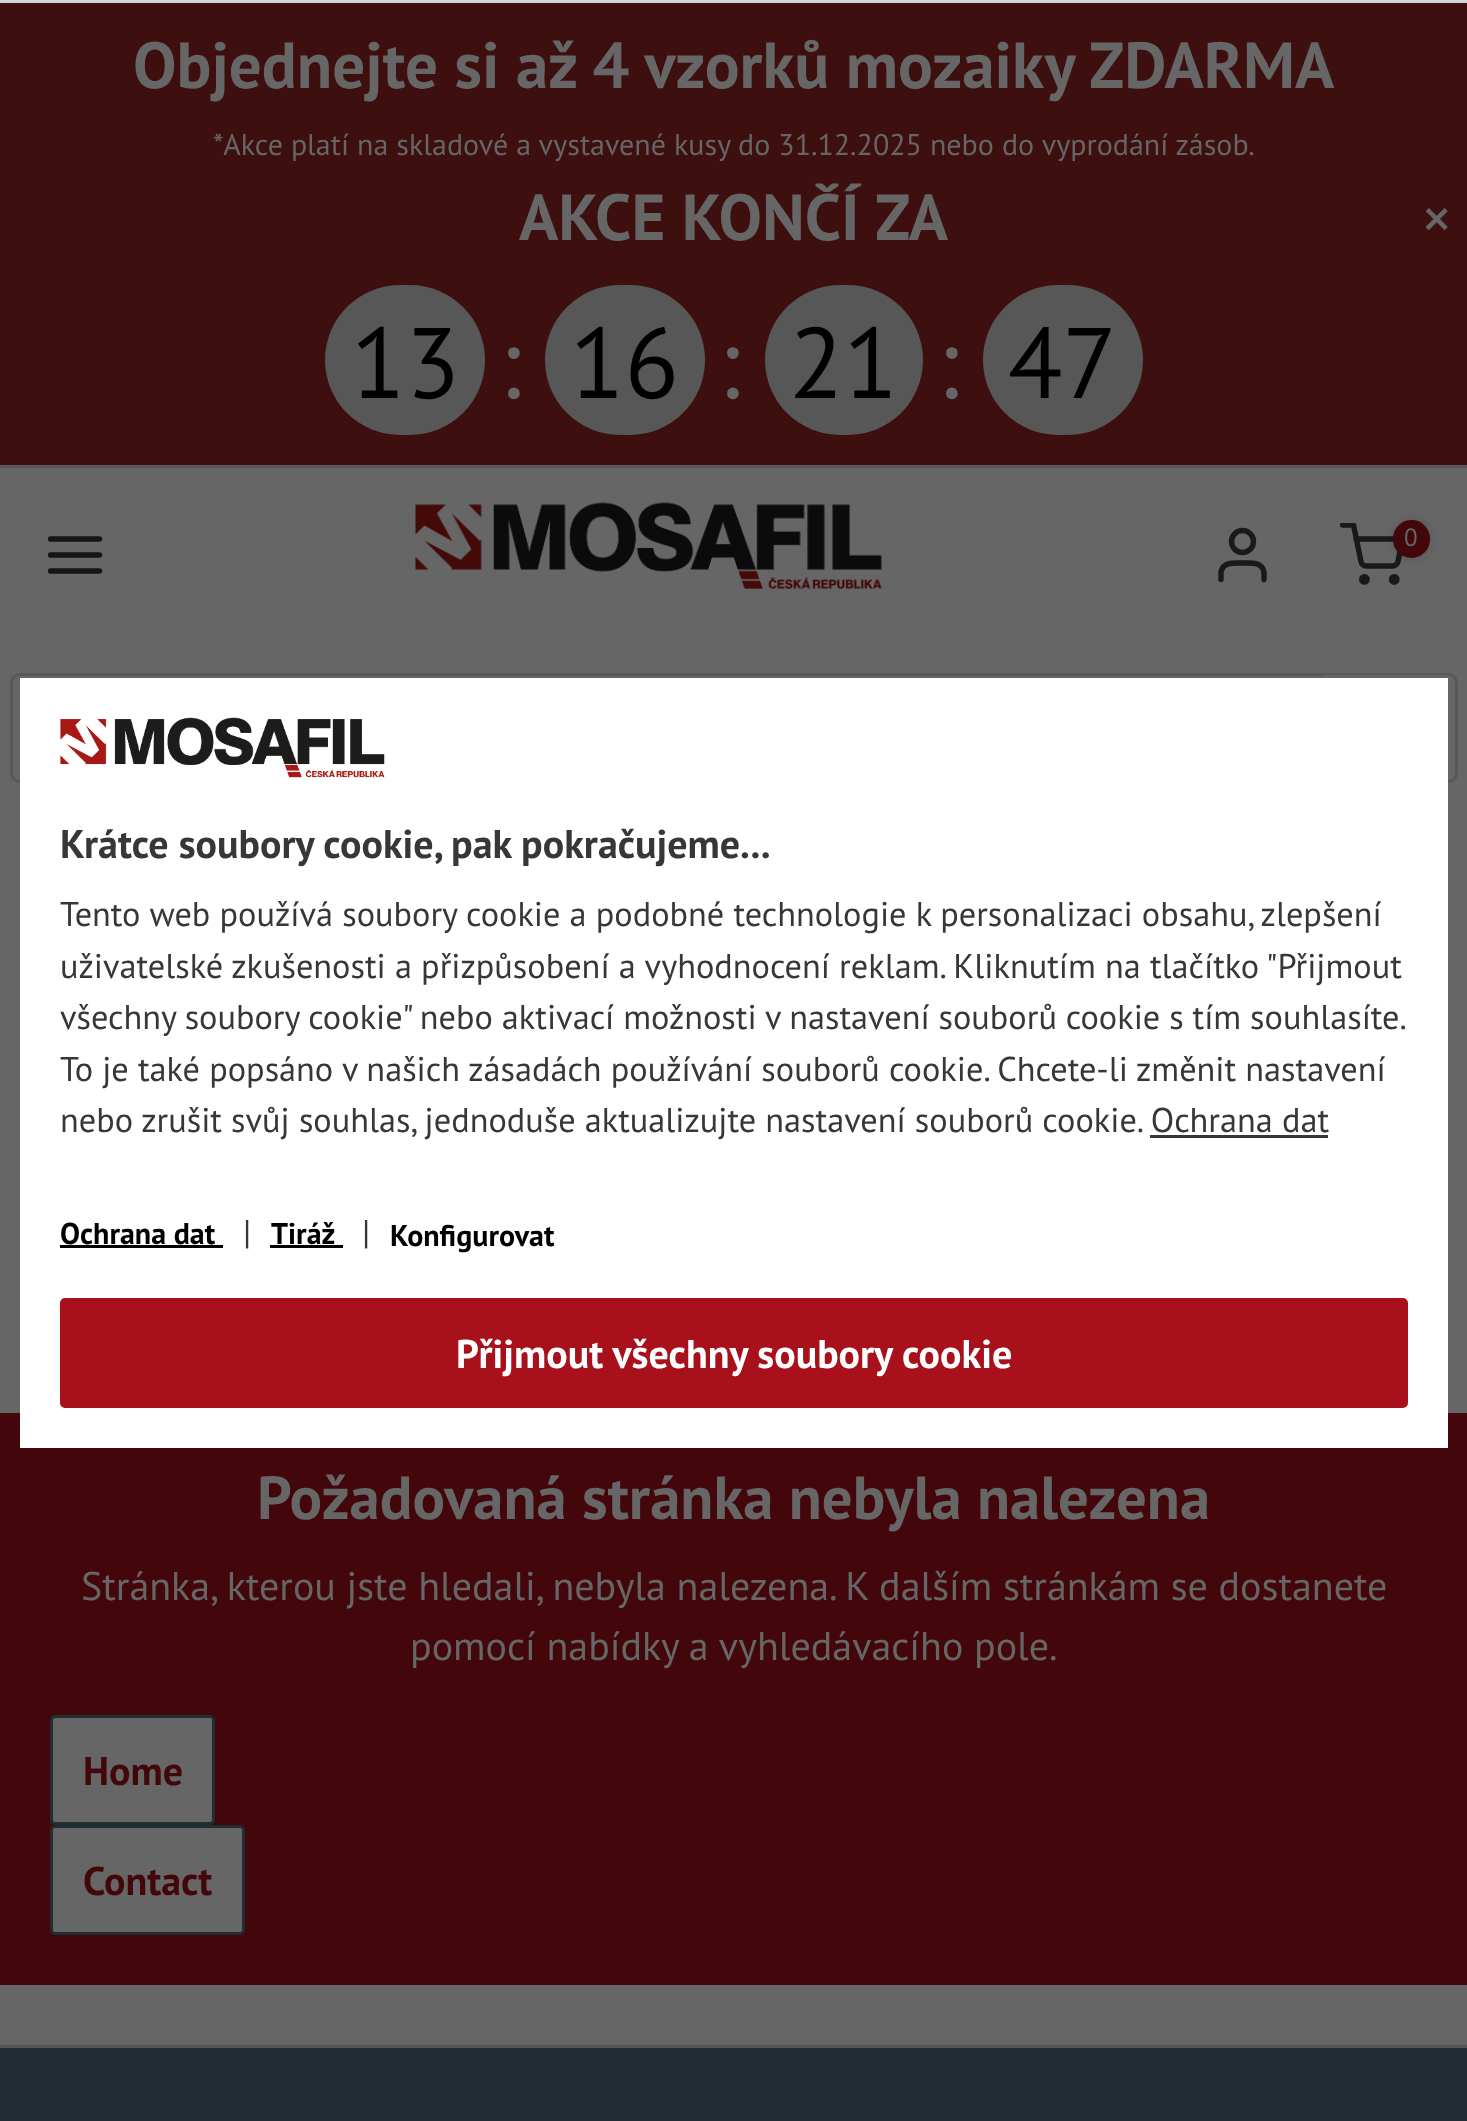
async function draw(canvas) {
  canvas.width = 1467
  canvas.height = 2121
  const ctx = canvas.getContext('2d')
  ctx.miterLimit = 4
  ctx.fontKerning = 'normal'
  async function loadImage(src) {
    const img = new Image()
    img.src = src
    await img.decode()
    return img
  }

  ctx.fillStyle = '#666'
  ctx.fillRect(0, 0, 1467, 2121)
  ctx.fillStyle = '#3e0f0f'
  ctx.fillRect(0, 3, 1467, 462)
  ctx.font = 'bold 65px PT Sans'
  ctx.fillStyle = '#666'
  ctx.fillText('Objednejte si až 4 vzorků mozaiky ZDARMA', 133, 88)
  ctx.font = '30px PT Sans'
  ctx.fillText('*Akce platí na skladové a vystavené kusy do 31.12.2025 nebo do vyprodání zásob.', 213, 155)
  ctx.font = 'bold 65px PT Sans'
  ctx.fillText('AKCE KONČÍ ZA', 519, 240)
  ctx.fillStyle = '#575757'
  ctx.beginPath()
  ctx.roundRect(325, 285, 160, 150, 75)
  ctx.fill()
  ctx.font = '100px PT Sans'
  ctx.fillStyle = '#000'
  ctx.fillText('13', 351, 398)
  ctx.fillStyle = '#666'
  ctx.fillText(':', 499, 398)
  ctx.fillStyle = '#575757'
  ctx.beginPath()
  ctx.roundRect(545, 285, 160, 150, 75)
  ctx.fill()
  ctx.fillStyle = '#000'
  ctx.fillText('16', 570, 398)
  ctx.fillStyle = '#666'
  ctx.fillText(':', 718, 398)
  ctx.fillStyle = '#575757'
  ctx.beginPath()
  ctx.roundRect(765, 285, 158, 150, 75)
  ctx.fill()
  ctx.fillStyle = '#000'
  ctx.fillText('21', 789, 398)
  ctx.fillStyle = '#666'
  ctx.fillText(':', 937, 398)
  ctx.fillStyle = '#575757'
  ctx.beginPath()
  ctx.roundRect(983, 285, 160, 150, 75)
  ctx.fill()
  ctx.fillStyle = '#000'
  ctx.fillText('47', 1008, 398)
  ctx.font = '62px PT Sans'
  ctx.fillStyle = '#666'
  ctx.fillText('×', 1421, 240)
  ctx.fillStyle = '#575757'
  ctx.fillRect(0, 465, 1467, 3)
  ctx.beginPath()
  ctx.moveTo(50.5, 555)
  ctx.lineTo(99.5, 555)
  ctx.moveTo(50.5, 539)
  ctx.lineTo(99.5, 539)
  ctx.moveTo(50.5, 571)
  ctx.lineTo(99.5, 571)
  ctx.strokeStyle = '#161616'
  ctx.lineWidth = 5.4
  ctx.lineCap = 'round'
  ctx.lineJoin = 'round'
  ctx.stroke()
  ctx.drawImage(await loadImage('image0.png'), 415, 502, 467, 87)
  ctx.beginPath()
  ctx.moveTo(1264, 579.5)
  ctx.lineTo(1264, 572)
  ctx.bezierCurveTo(1262, 561.5, 1250.5, 563, 1242.5, 563)
  ctx.bezierCurveTo(1234.5, 563, 1223, 561.5, 1221, 572)
  ctx.lineTo(1221, 579.5)
  ctx.strokeStyle = '#191919'
  ctx.stroke()
  ctx.beginPath()
  ctx.arc(1242.5, 541.5, 11, 0, 2 * Math.PI)
  ctx.stroke()
  ctx.beginPath()
  ctx.arc(1364.4, 579.4, 2.7, 0, 2 * Math.PI)
  ctx.stroke()
  ctx.beginPath()
  ctx.arc(1394.2, 579.4, 2.7, 0, 2 * Math.PI)
  ctx.stroke()
  ctx.save()
  ctx.beginPath()
  ctx.rect(1340, 523, 65, 65)
  ctx.clip()
  ctx.beginPath()
  ctx.moveTo(1342.5, 525)
  ctx.lineTo(1353.5, 525)
  ctx.lineTo(1361, 561.5)
  ctx.bezierCurveTo(1361.5, 564, 1363.5, 566, 1366, 566)
  ctx.lineTo(1392.5, 566)
  ctx.bezierCurveTo(1395, 566, 1397.5, 564, 1398, 561.5)
  ctx.lineTo(1402.5, 539)
  ctx.lineTo(1356, 539)
  ctx.stroke()
  ctx.restore()
  ctx.fillStyle = '#0000002b'
  ctx.filter = 'blur(5px)'
  ctx.beginPath()
  ctx.roundRect(1393, 520, 37, 38, 18.5)
  ctx.fill()
  ctx.filter = 'none'
  ctx.fillStyle = '#43070b'
  ctx.beginPath()
  ctx.roundRect(1394.5, 521.5, 34, 35, 17)
  ctx.fill()
  ctx.strokeStyle = '#43070b'
  ctx.lineWidth = 3
  ctx.lineJoin = 'miter'
  ctx.stroke()
  ctx.font = '25px PT Sans'
  ctx.fillStyle = '#666'
  ctx.fillText('0', 1404, 546)
  ctx.beginPath()
  ctx.roundRect(11.5, 674.5, 1445, 107, 8.5)
  ctx.strokeStyle = '#585858'
  ctx.stroke()
  ctx.beginPath()
  ctx.roundRect(1323, 675, 132, 105, [0, 8, 8, 0])
  ctx.fill()
  ctx.fillStyle = '#d1d5db'
  ctx.fillRect(0, 0, 1467, 3)
  ctx.fillStyle = '#43070b'
  ctx.fillRect(0, 1413, 1467, 572)
  ctx.fillStyle = '#fff'
  ctx.fillRect(20, 678, 1428, 770)
  ctx.drawImage(await loadImage('image1.png'), 60, 717, 325, 61)
  ctx.font = 'bold 40px PT Sans'
  ctx.fillStyle = '#373737'
  ctx.fillText('Krátce soubory cookie, pak pokračujeme...', 60, 858)
  ctx.font = '34.3px PT Sans'
  ctx.fillText('Tento web používá soubory cookie a podobné technologie k personalizaci obsahu, zlepšení', 60, 926)
  ctx.fillText('uživatelské zkušenosti a přizpůsobení a vyhodnocení reklam. Kliknutím na tlačítko "Přijmout', 60, 978)
  ctx.wordSpacing = '-0.25px'
  ctx.fillText('všechny soubory cookie" nebo aktivací možnosti v nastavení souborů cookie s tím souhlasíte.', 60, 1029)
  ctx.wordSpacing = '0px'
  ctx.fillText('To je také popsáno v našich zásadách používání souborů cookie. Chcete-li změnit nastavení', 60, 1081)
  ctx.fillText('nebo zrušit svůj souhlas, jednoduše aktualizujte nastavení souborů cookie. Ochrana dat', 60, 1132)
  ctx.fillRect(1150, 1135, 178, 3)
  ctx.font = 'bold 30px PT Sans'
  ctx.fillStyle = '#000'
  ctx.fillText('Ochrana dat', 60, 1244)
  ctx.fillRect(60, 1245, 163, 3)
  ctx.font = '34.3px PT Sans'
  ctx.fillStyle = '#373737'
  ctx.fillText('|', 243, 1244)
  ctx.font = 'bold 30px PT Sans'
  ctx.fillStyle = '#000'
  ctx.fillText('Tiráž', 271, 1244)
  ctx.fillRect(270, 1245, 73, 3)
  ctx.font = '34.3px PT Sans'
  ctx.fillStyle = '#373737'
  ctx.fillText('|', 362, 1244)
  ctx.font = 'bold 30px PT Sans'
  ctx.fillStyle = '#000'
  ctx.fillText('Konfigurovat', 390, 1246)
  ctx.fillStyle = '#a8111c'
  ctx.beginPath()
  ctx.roundRect(61.5, 1299.5, 1345, 107, 3.5)
  ctx.fill()
  ctx.strokeStyle = '#a8111c'
  ctx.stroke()
  ctx.font = 'bold 40px PT Sans'
  ctx.fillStyle = '#fff'
  ctx.fillText('Přijmout všechny soubory cookie', 456, 1368)
  ctx.font = 'bold 60.75px PT Sans'
  ctx.fillStyle = '#666'
  ctx.fillText('Požadovaná stránka nebyla nalezena', 257, 1519)
  ctx.font = '40px PT Sans'
  ctx.fillText('Stránka, kterou jste hledali, nebyla nalezena. K dalším stránkám se dostanete', 81, 1600)
  ctx.fillText('pomocí nabídky a vyhledávacího pole.', 410, 1660)
  ctx.beginPath()
  ctx.roundRect(51.5, 1716.5, 162, 107, 3.5)
  ctx.fill()
  ctx.strokeStyle = '#212c33'
  ctx.stroke()
  ctx.font = 'bold 40px PT Sans'
  ctx.fillStyle = '#43070b'
  ctx.fillText('Home', 83, 1785)
  ctx.fillStyle = '#666'
  ctx.beginPath()
  ctx.roundRect(51.5, 1826.5, 192, 107, 3.5)
  ctx.fill()
  ctx.stroke()
  ctx.fillStyle = '#43070b'
  ctx.fillText('Contact', 83, 1895)
  ctx.fillStyle = '#545558'
  ctx.fillRect(0, 2045, 1467, 3)
  ctx.fillStyle = '#212c33'
  ctx.fillRect(0, 2048, 1467, 73)
}

draw(document.querySelector('canvas'))
